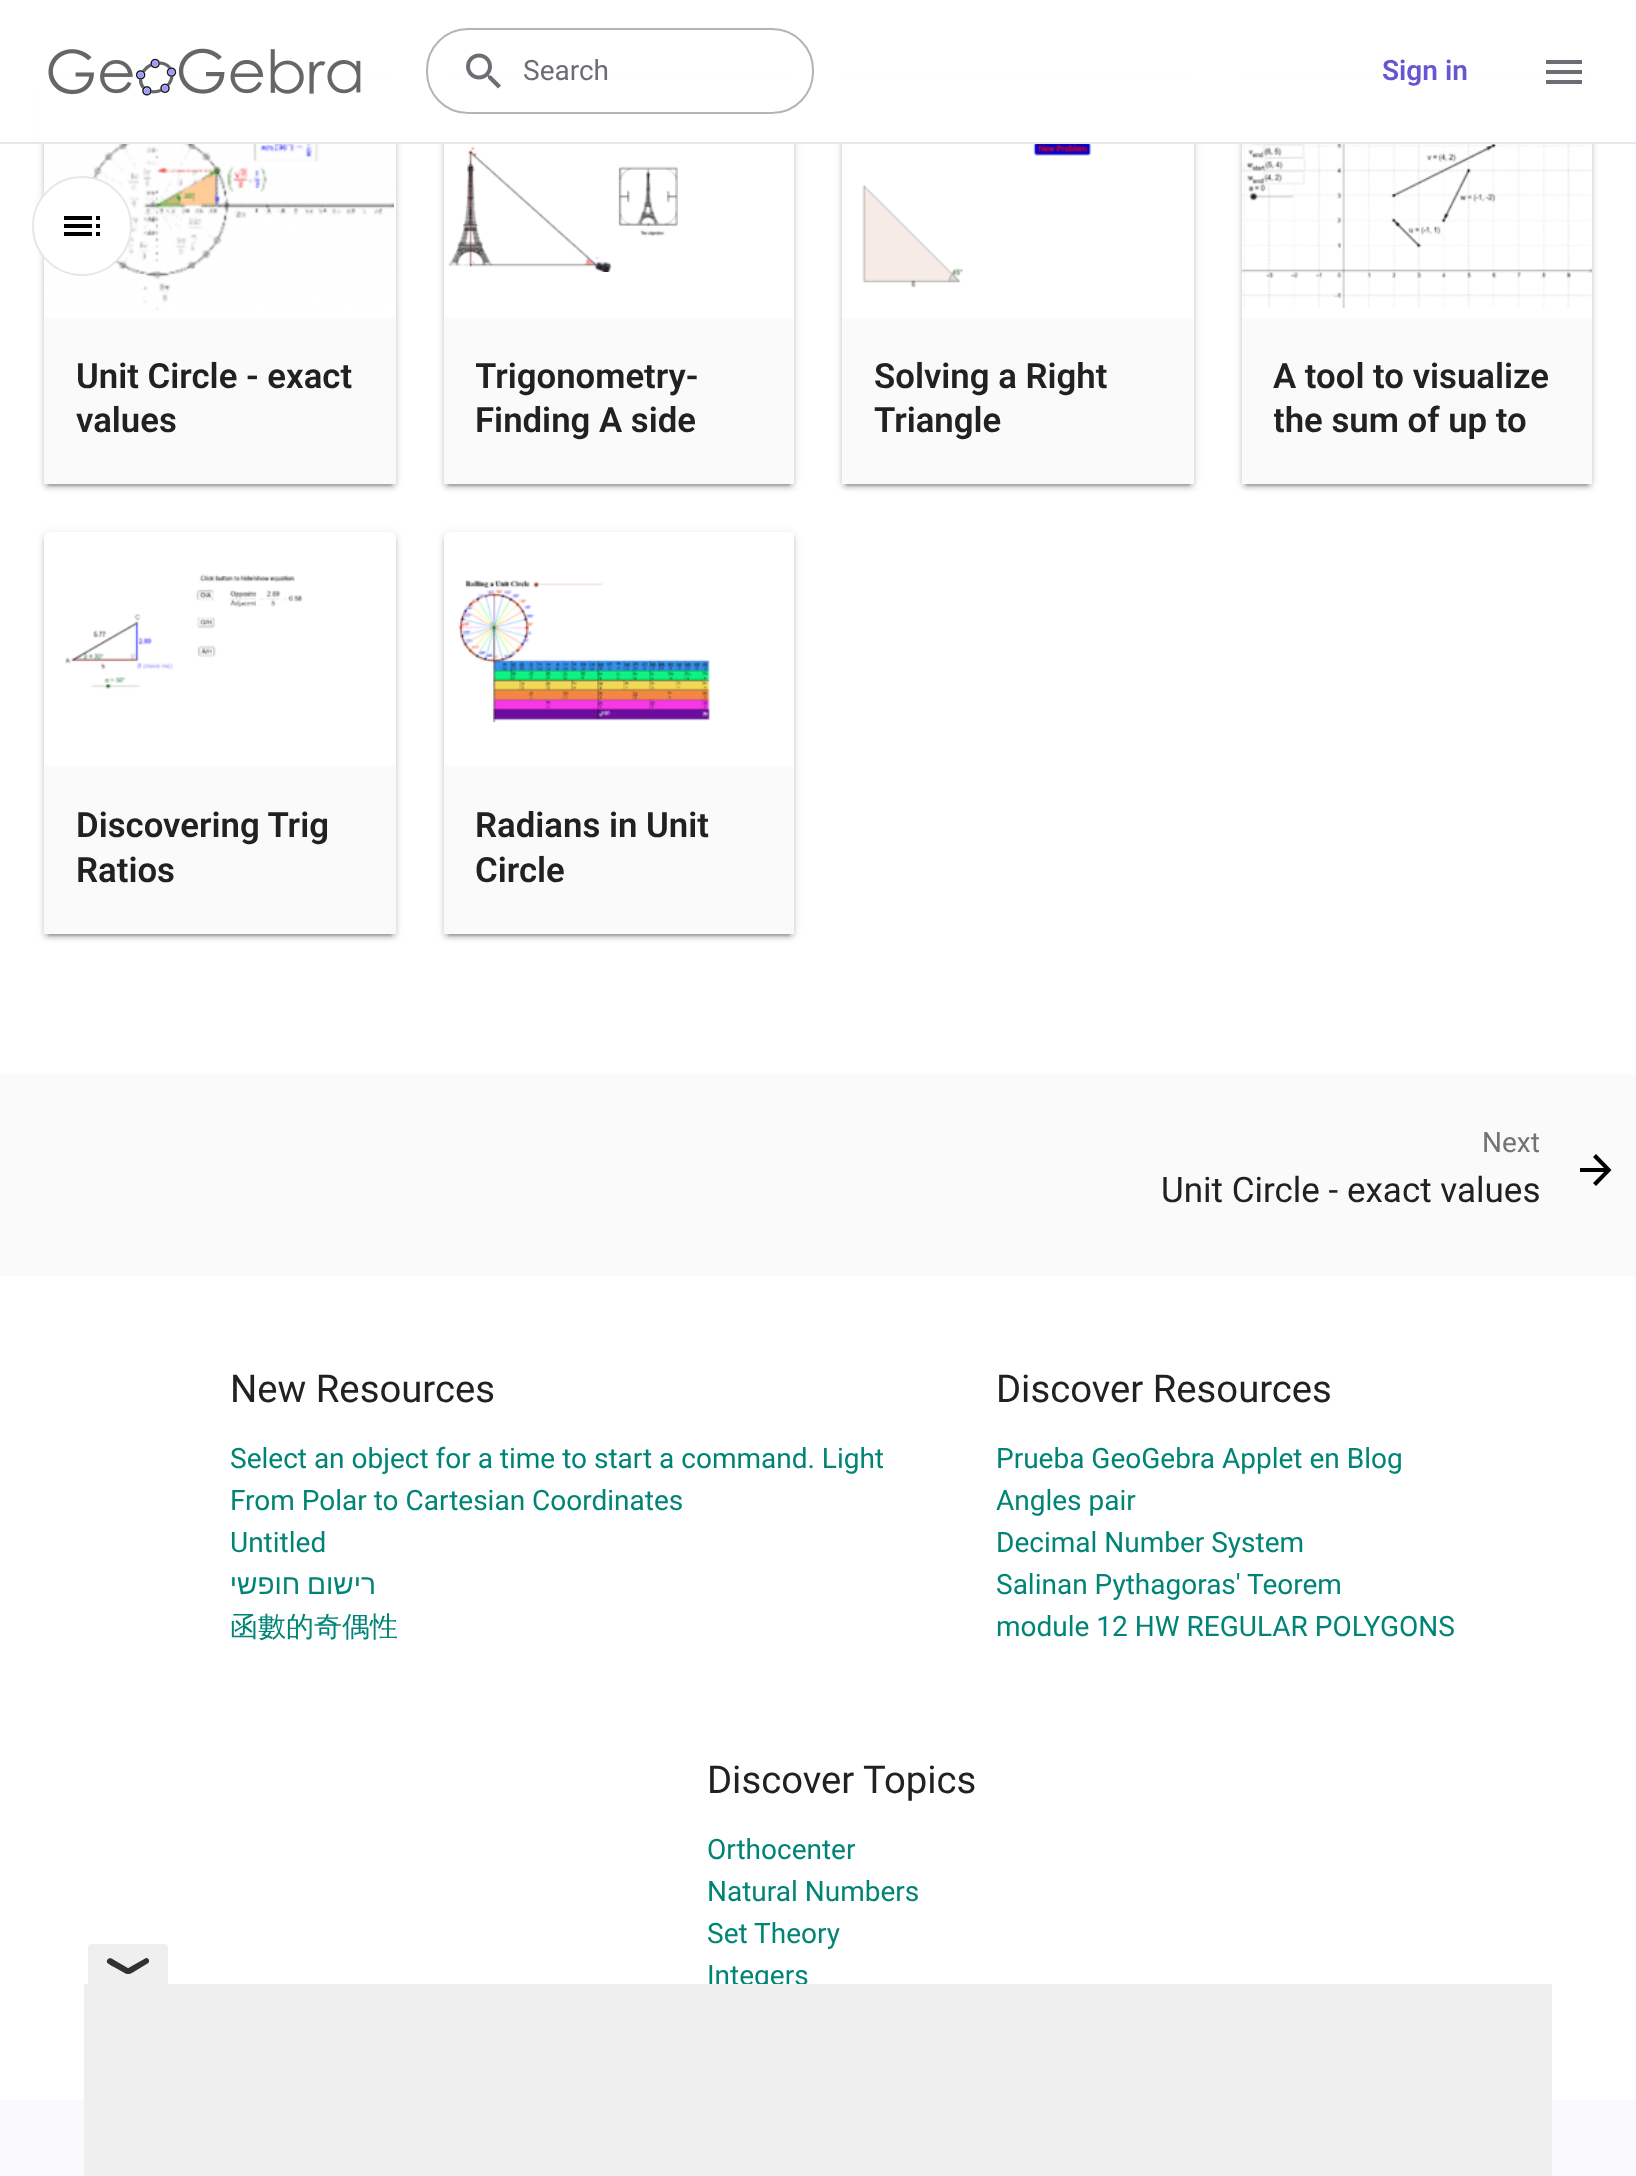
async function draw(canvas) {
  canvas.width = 1636
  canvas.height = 2176
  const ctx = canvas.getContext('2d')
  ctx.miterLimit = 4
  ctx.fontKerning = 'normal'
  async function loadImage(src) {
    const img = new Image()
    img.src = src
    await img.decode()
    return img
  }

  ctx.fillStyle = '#fff'
  ctx.fillRect(0, 0, 1636, 2176)
  ctx.save()
  ctx.beginPath()
  ctx.moveTo(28, 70)
  ctx.lineTo(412, 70)
  ctx.lineTo(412, 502)
  ctx.lineTo(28, 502)
  ctx.closePath()
  ctx.moveTo(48, 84)
  ctx.lineTo(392, 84)
  ctx.bezierCurveTo(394, 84, 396, 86, 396, 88)
  ctx.lineTo(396, 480)
  ctx.bezierCurveTo(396, 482, 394, 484, 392, 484)
  ctx.lineTo(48, 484)
  ctx.bezierCurveTo(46, 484, 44, 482, 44, 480)
  ctx.lineTo(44, 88)
  ctx.bezierCurveTo(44, 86, 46, 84, 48, 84)
  ctx.closePath()
  ctx.clip('evenodd')
  ctx.fillStyle = '#0000001f'
  ctx.filter = 'blur(5px)'
  ctx.beginPath()
  ctx.roundRect(44, 86, 352, 400, 4)
  ctx.fill()
  ctx.filter = 'none'
  ctx.restore()
  ctx.save()
  ctx.beginPath()
  ctx.moveTo(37, 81)
  ctx.lineTo(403, 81)
  ctx.lineTo(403, 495)
  ctx.lineTo(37, 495)
  ctx.closePath()
  ctx.moveTo(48, 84)
  ctx.lineTo(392, 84)
  ctx.bezierCurveTo(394, 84, 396, 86, 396, 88)
  ctx.lineTo(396, 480)
  ctx.bezierCurveTo(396, 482, 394, 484, 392, 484)
  ctx.lineTo(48, 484)
  ctx.bezierCurveTo(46, 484, 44, 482, 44, 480)
  ctx.lineTo(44, 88)
  ctx.bezierCurveTo(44, 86, 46, 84, 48, 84)
  ctx.closePath()
  ctx.clip('evenodd')
  ctx.fillStyle = '#00000024'
  ctx.filter = 'blur(2px)'
  ctx.beginPath()
  ctx.roundRect(44, 88, 352, 400, 4)
  ctx.fill()
  ctx.filter = 'none'
  ctx.restore()
  ctx.save()
  ctx.beginPath()
  ctx.rect(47, 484, 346, 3)
  ctx.clip()
  ctx.fillStyle = '#00000033'
  ctx.filter = 'blur(1px)'
  ctx.beginPath()
  ctx.rect(48, 94, 344, 392)
  ctx.fill()
  ctx.filter = 'none'
  ctx.restore()
  ctx.save()
  ctx.beginPath()
  ctx.moveTo(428, 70)
  ctx.lineTo(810, 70)
  ctx.lineTo(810, 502)
  ctx.lineTo(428, 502)
  ctx.closePath()
  ctx.moveTo(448, 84)
  ctx.lineTo(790, 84)
  ctx.bezierCurveTo(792, 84, 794, 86, 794, 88)
  ctx.lineTo(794, 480)
  ctx.bezierCurveTo(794, 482, 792, 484, 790, 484)
  ctx.lineTo(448, 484)
  ctx.bezierCurveTo(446, 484, 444, 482, 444, 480)
  ctx.lineTo(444, 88)
  ctx.bezierCurveTo(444, 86, 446, 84, 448, 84)
  ctx.closePath()
  ctx.clip('evenodd')
  ctx.fillStyle = '#0000001f'
  ctx.filter = 'blur(5px)'
  ctx.beginPath()
  ctx.roundRect(444, 86, 350, 400, 4)
  ctx.fill()
  ctx.filter = 'none'
  ctx.restore()
  ctx.save()
  ctx.beginPath()
  ctx.moveTo(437, 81)
  ctx.lineTo(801, 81)
  ctx.lineTo(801, 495)
  ctx.lineTo(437, 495)
  ctx.closePath()
  ctx.moveTo(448, 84)
  ctx.lineTo(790, 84)
  ctx.bezierCurveTo(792, 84, 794, 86, 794, 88)
  ctx.lineTo(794, 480)
  ctx.bezierCurveTo(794, 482, 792, 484, 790, 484)
  ctx.lineTo(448, 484)
  ctx.bezierCurveTo(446, 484, 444, 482, 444, 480)
  ctx.lineTo(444, 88)
  ctx.bezierCurveTo(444, 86, 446, 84, 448, 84)
  ctx.closePath()
  ctx.clip('evenodd')
  ctx.fillStyle = '#00000024'
  ctx.filter = 'blur(2px)'
  ctx.beginPath()
  ctx.roundRect(444, 88, 350, 400, 4)
  ctx.fill()
  ctx.filter = 'none'
  ctx.restore()
  ctx.save()
  ctx.beginPath()
  ctx.rect(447, 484, 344, 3)
  ctx.clip()
  ctx.fillStyle = '#00000033'
  ctx.filter = 'blur(1px)'
  ctx.beginPath()
  ctx.rect(448, 94, 342, 392)
  ctx.fill()
  ctx.filter = 'none'
  ctx.restore()
  ctx.save()
  ctx.beginPath()
  ctx.moveTo(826, 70)
  ctx.lineTo(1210, 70)
  ctx.lineTo(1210, 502)
  ctx.lineTo(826, 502)
  ctx.closePath()
  ctx.moveTo(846, 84)
  ctx.lineTo(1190, 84)
  ctx.bezierCurveTo(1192, 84, 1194, 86, 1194, 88)
  ctx.lineTo(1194, 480)
  ctx.bezierCurveTo(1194, 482, 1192, 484, 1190, 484)
  ctx.lineTo(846, 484)
  ctx.bezierCurveTo(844, 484, 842, 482, 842, 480)
  ctx.lineTo(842, 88)
  ctx.bezierCurveTo(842, 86, 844, 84, 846, 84)
  ctx.closePath()
  ctx.clip('evenodd')
  ctx.fillStyle = '#0000001f'
  ctx.filter = 'blur(5px)'
  ctx.beginPath()
  ctx.roundRect(842, 86, 352, 400, 4)
  ctx.fill()
  ctx.filter = 'none'
  ctx.restore()
  ctx.save()
  ctx.beginPath()
  ctx.moveTo(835, 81)
  ctx.lineTo(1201, 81)
  ctx.lineTo(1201, 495)
  ctx.lineTo(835, 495)
  ctx.closePath()
  ctx.moveTo(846, 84)
  ctx.lineTo(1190, 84)
  ctx.bezierCurveTo(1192, 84, 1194, 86, 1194, 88)
  ctx.lineTo(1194, 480)
  ctx.bezierCurveTo(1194, 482, 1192, 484, 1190, 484)
  ctx.lineTo(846, 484)
  ctx.bezierCurveTo(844, 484, 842, 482, 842, 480)
  ctx.lineTo(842, 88)
  ctx.bezierCurveTo(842, 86, 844, 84, 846, 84)
  ctx.closePath()
  ctx.clip('evenodd')
  ctx.fillStyle = '#00000024'
  ctx.filter = 'blur(2px)'
  ctx.beginPath()
  ctx.roundRect(842, 88, 352, 400, 4)
  ctx.fill()
  ctx.filter = 'none'
  ctx.restore()
  ctx.save()
  ctx.beginPath()
  ctx.rect(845, 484, 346, 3)
  ctx.clip()
  ctx.fillStyle = '#00000033'
  ctx.filter = 'blur(1px)'
  ctx.beginPath()
  ctx.rect(846, 94, 344, 392)
  ctx.fill()
  ctx.filter = 'none'
  ctx.restore()
  ctx.save()
  ctx.beginPath()
  ctx.moveTo(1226, 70)
  ctx.lineTo(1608, 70)
  ctx.lineTo(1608, 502)
  ctx.lineTo(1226, 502)
  ctx.closePath()
  ctx.moveTo(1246, 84)
  ctx.lineTo(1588, 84)
  ctx.bezierCurveTo(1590, 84, 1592, 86, 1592, 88)
  ctx.lineTo(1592, 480)
  ctx.bezierCurveTo(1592, 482, 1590, 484, 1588, 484)
  ctx.lineTo(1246, 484)
  ctx.bezierCurveTo(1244, 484, 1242, 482, 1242, 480)
  ctx.lineTo(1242, 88)
  ctx.bezierCurveTo(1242, 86, 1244, 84, 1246, 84)
  ctx.closePath()
  ctx.clip('evenodd')
  ctx.fillStyle = '#0000001f'
  ctx.filter = 'blur(5px)'
  ctx.beginPath()
  ctx.roundRect(1242, 86, 350, 400, 4)
  ctx.fill()
  ctx.filter = 'none'
  ctx.restore()
  ctx.save()
  ctx.beginPath()
  ctx.moveTo(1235, 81)
  ctx.lineTo(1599, 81)
  ctx.lineTo(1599, 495)
  ctx.lineTo(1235, 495)
  ctx.closePath()
  ctx.moveTo(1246, 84)
  ctx.lineTo(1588, 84)
  ctx.bezierCurveTo(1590, 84, 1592, 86, 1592, 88)
  ctx.lineTo(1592, 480)
  ctx.bezierCurveTo(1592, 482, 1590, 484, 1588, 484)
  ctx.lineTo(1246, 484)
  ctx.bezierCurveTo(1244, 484, 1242, 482, 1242, 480)
  ctx.lineTo(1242, 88)
  ctx.bezierCurveTo(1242, 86, 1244, 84, 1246, 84)
  ctx.closePath()
  ctx.clip('evenodd')
  ctx.fillStyle = '#00000024'
  ctx.filter = 'blur(2px)'
  ctx.beginPath()
  ctx.roundRect(1242, 88, 350, 400, 4)
  ctx.fill()
  ctx.filter = 'none'
  ctx.restore()
  ctx.save()
  ctx.beginPath()
  ctx.rect(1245, 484, 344, 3)
  ctx.clip()
  ctx.fillStyle = '#00000033'
  ctx.filter = 'blur(1px)'
  ctx.beginPath()
  ctx.rect(1246, 94, 342, 392)
  ctx.fill()
  ctx.filter = 'none'
  ctx.restore()
  ctx.fillRect(37, 79, 1562, 63)
  ctx.fillStyle = '#e6e6eb'
  ctx.fillRect(0, 142, 1636, 2)
  ctx.drawImage(await loadImage('image0.png'), 48, 48, 313, 48)
  ctx.beginPath()
  ctx.roundRect(427, 29, 386, 84, 41)
  ctx.strokeStyle = '#b4b3ba'
  ctx.lineWidth = 2
  ctx.stroke()
  ctx.drawImage(await loadImage('image1.png'), 466, 53, 35, 36)
  ctx.font = '28px Roboto'
  ctx.fillStyle = '#6e6d73'
  ctx.fillText('Search', 523, 80)
  ctx.font = '600 28px Roboto'
  ctx.fillStyle = '#6557d2'
  ctx.fillText('Sign in', 1382, 80)
  ctx.drawImage(await loadImage('image2.png'), 1546, 60, 36, 24)
  ctx.drawImage(await loadImage('image4.png'), 44, 144, 350, 167)
  ctx.fillStyle = '#fff'
  ctx.beginPath()
  ctx.arc(82, 226, 49, 0, 2 * Math.PI)
  ctx.fill()
  ctx.strokeStyle = '#e5e7eb'
  ctx.stroke()
  ctx.drawImage(await loadImage('image3.png'), 64, 216, 36, 20)
  ctx.fillStyle = '#fafafa'
  ctx.fillRect(44, 318, 352, 166)
  ctx.font = '600 34.75px Roboto'
  ctx.fillStyle = '#212121'
  ctx.fillText('Unit Circle - exact', 76, 388)
  ctx.fillText('values', 76, 432)
  ctx.drawImage(await loadImage('image5.png'), 448, 144, 230, 128)
  ctx.fillStyle = '#fafafa'
  ctx.fillRect(444, 318, 350, 166)
  ctx.save()
  ctx.beginPath()
  ctx.rect(476, 354, 286, 94)
  ctx.clip()
  ctx.fillStyle = '#212121'
  ctx.fillText('Trigonometry-', 475, 388)
  ctx.restore()
  ctx.fillStyle = '#212121'
  ctx.fillText('Finding A side', 475, 432)
  ctx.drawImage(await loadImage('image6.png'), 862, 144, 273, 144)
  ctx.fillStyle = '#fafafa'
  ctx.fillRect(842, 318, 352, 166)
  ctx.fillStyle = '#212121'
  ctx.fillText('Solving a Right', 874, 388)
  ctx.fillText('Triangle', 874, 432)
  ctx.drawImage(await loadImage('image7.png'), 1242, 144, 350, 164)
  ctx.fillStyle = '#fafafa'
  ctx.fillRect(1242, 318, 350, 166)
  ctx.fillStyle = '#212121'
  ctx.fillText('A tool to visualize', 1273, 388)
  ctx.save()
  ctx.beginPath()
  ctx.rect(1274, 354, 286, 94)
  ctx.clip()
  ctx.fillText('the sum of up to', 1273, 432)
  ctx.restore()
  ctx.save()
  ctx.beginPath()
  ctx.moveTo(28, 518)
  ctx.lineTo(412, 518)
  ctx.lineTo(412, 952)
  ctx.lineTo(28, 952)
  ctx.closePath()
  ctx.moveTo(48, 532)
  ctx.lineTo(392, 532)
  ctx.bezierCurveTo(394, 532, 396, 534, 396, 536)
  ctx.lineTo(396, 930)
  ctx.bezierCurveTo(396, 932, 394, 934, 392, 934)
  ctx.lineTo(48, 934)
  ctx.bezierCurveTo(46, 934, 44, 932, 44, 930)
  ctx.lineTo(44, 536)
  ctx.bezierCurveTo(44, 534, 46, 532, 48, 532)
  ctx.closePath()
  ctx.clip('evenodd')
  ctx.fillStyle = '#0000001f'
  ctx.filter = 'blur(5px)'
  ctx.beginPath()
  ctx.roundRect(44, 534, 352, 402, 4)
  ctx.fill()
  ctx.filter = 'none'
  ctx.restore()
  ctx.save()
  ctx.beginPath()
  ctx.moveTo(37, 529)
  ctx.lineTo(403, 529)
  ctx.lineTo(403, 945)
  ctx.lineTo(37, 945)
  ctx.closePath()
  ctx.moveTo(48, 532)
  ctx.lineTo(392, 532)
  ctx.bezierCurveTo(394, 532, 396, 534, 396, 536)
  ctx.lineTo(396, 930)
  ctx.bezierCurveTo(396, 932, 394, 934, 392, 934)
  ctx.lineTo(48, 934)
  ctx.bezierCurveTo(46, 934, 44, 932, 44, 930)
  ctx.lineTo(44, 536)
  ctx.bezierCurveTo(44, 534, 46, 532, 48, 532)
  ctx.closePath()
  ctx.clip('evenodd')
  ctx.fillStyle = '#00000024'
  ctx.filter = 'blur(2px)'
  ctx.beginPath()
  ctx.roundRect(44, 536, 352, 402, 4)
  ctx.fill()
  ctx.filter = 'none'
  ctx.restore()
  ctx.save()
  ctx.beginPath()
  ctx.rect(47, 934, 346, 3)
  ctx.clip()
  ctx.fillStyle = '#00000033'
  ctx.filter = 'blur(1px)'
  ctx.beginPath()
  ctx.rect(48, 542, 344, 394)
  ctx.fill()
  ctx.filter = 'none'
  ctx.restore()
  ctx.drawImage(await loadImage('image8.png'), 64, 574, 239, 115)
  ctx.fillStyle = '#fafafa'
  ctx.fillRect(44, 766, 352, 168)
  ctx.fillStyle = '#212121'
  ctx.fillText('Discovering Trig', 76, 837)
  ctx.fillText('Ratios', 76, 882)
  ctx.save()
  ctx.beginPath()
  ctx.moveTo(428, 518)
  ctx.lineTo(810, 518)
  ctx.lineTo(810, 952)
  ctx.lineTo(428, 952)
  ctx.closePath()
  ctx.moveTo(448, 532)
  ctx.lineTo(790, 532)
  ctx.bezierCurveTo(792, 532, 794, 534, 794, 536)
  ctx.lineTo(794, 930)
  ctx.bezierCurveTo(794, 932, 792, 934, 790, 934)
  ctx.lineTo(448, 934)
  ctx.bezierCurveTo(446, 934, 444, 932, 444, 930)
  ctx.lineTo(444, 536)
  ctx.bezierCurveTo(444, 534, 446, 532, 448, 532)
  ctx.closePath()
  ctx.clip('evenodd')
  ctx.fillStyle = '#0000001f'
  ctx.filter = 'blur(5px)'
  ctx.beginPath()
  ctx.roundRect(444, 534, 350, 402, 4)
  ctx.fill()
  ctx.filter = 'none'
  ctx.restore()
  ctx.save()
  ctx.beginPath()
  ctx.moveTo(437, 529)
  ctx.lineTo(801, 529)
  ctx.lineTo(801, 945)
  ctx.lineTo(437, 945)
  ctx.closePath()
  ctx.moveTo(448, 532)
  ctx.lineTo(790, 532)
  ctx.bezierCurveTo(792, 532, 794, 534, 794, 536)
  ctx.lineTo(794, 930)
  ctx.bezierCurveTo(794, 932, 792, 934, 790, 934)
  ctx.lineTo(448, 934)
  ctx.bezierCurveTo(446, 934, 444, 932, 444, 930)
  ctx.lineTo(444, 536)
  ctx.bezierCurveTo(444, 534, 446, 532, 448, 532)
  ctx.closePath()
  ctx.clip('evenodd')
  ctx.fillStyle = '#00000024'
  ctx.filter = 'blur(2px)'
  ctx.beginPath()
  ctx.roundRect(444, 536, 350, 402, 4)
  ctx.fill()
  ctx.filter = 'none'
  ctx.restore()
  ctx.save()
  ctx.beginPath()
  ctx.rect(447, 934, 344, 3)
  ctx.clip()
  ctx.fillStyle = '#00000033'
  ctx.filter = 'blur(1px)'
  ctx.beginPath()
  ctx.rect(448, 542, 342, 394)
  ctx.fill()
  ctx.filter = 'none'
  ctx.restore()
  ctx.drawImage(await loadImage('image9.png'), 458, 580, 253, 142)
  ctx.fillStyle = '#fafafa'
  ctx.fillRect(444, 766, 350, 168)
  ctx.fillStyle = '#212121'
  ctx.fillText('Radians in Unit', 475, 837)
  ctx.fillText('Circle', 475, 882)
  ctx.fillStyle = '#fafafa'
  ctx.fillRect(0, 1074, 1636, 202)
  ctx.font = '28px Roboto'
  ctx.fillStyle = '#737373'
  ctx.fillText('Next', 1482, 1152)
  ctx.fillStyle = '#000'
  ctx.beginPath()
  ctx.moveTo(1580, 1168)
  ctx.lineTo(1580, 1172)
  ctx.lineTo(1604, 1172)
  ctx.lineTo(1593, 1183)
  ctx.lineTo(1596, 1186)
  ctx.lineTo(1611.5, 1170)
  ctx.lineTo(1596, 1154)
  ctx.lineTo(1593, 1157)
  ctx.lineTo(1604, 1168)
  ctx.closePath()
  ctx.fill()
  ctx.font = '35px Roboto'
  ctx.fillStyle = '#212121'
  ctx.fillText('Unit Circle - exact values', 1161, 1202)
  ctx.font = '38.25px Roboto'
  ctx.fillText('New Resources', 230, 1402)
  ctx.font = '28px Roboto'
  ctx.fillStyle = '#008475'
  ctx.fillText('Select an object for a time to start a command. Light', 230, 1468)
  ctx.fillText('From Polar to Cartesian Coordinates', 230, 1510)
  ctx.fillText('Untitled', 230, 1552)
  ctx.wordSpacing = '-1px'
  ctx.direction = 'rtl'
  ctx.font = '28px Liberation Sans'
  ctx.fillText('רישום חופשי', 376, 1594)
  ctx.wordSpacing = '0px'
  ctx.direction = 'ltr'
  ctx.font = '500 28px WenQuanYi Zen Hei'
  ctx.fillText('函數的奇偶性', 230, 1636)
  ctx.font = '38.25px Roboto'
  ctx.fillStyle = '#212121'
  ctx.fillText('Discover Resources', 996, 1402)
  ctx.font = '28px Roboto'
  ctx.fillStyle = '#008475'
  ctx.fillText('Prueba GeoGebra Applet en Blog', 996, 1468)
  ctx.fillText('Angles pair', 996, 1510)
  ctx.fillText('Decimal Number System', 996, 1552)
  ctx.fillText('Salinan Pythagoras\' Teorem', 996, 1594)
  ctx.fillText('module 12 HW REGULAR POLYGONS', 996, 1636)
  ctx.font = '38.25px Roboto'
  ctx.fillStyle = '#212121'
  ctx.fillText('Discover Topics', 707, 1793)
  ctx.font = '28px Roboto'
  ctx.fillStyle = '#008475'
  ctx.fillText('Orthocenter', 707, 1859)
  ctx.fillText('Natural Numbers', 707, 1901)
  ctx.fillText('Set Theory', 707, 1943)
  ctx.fillText('Integers', 707, 1985)
  ctx.fillStyle = '#fafafc'
  ctx.fillRect(0, 2100, 1636, 76)
  ctx.fillStyle = '#efefef'
  ctx.beginPath()
  ctx.roundRect(88, 1944, 80, 40, [4, 4, 0, 0])
  ctx.fill()
  ctx.fillStyle = '#313131'
  ctx.beginPath()
  ctx.moveTo(111.5, 1958.5)
  ctx.lineTo(129.5, 1969)
  ctx.bezierCurveTo(131.5, 1972, 128.5, 1975, 125.5, 1973.5)
  ctx.lineTo(114, 1967)
  ctx.bezierCurveTo(112, 1966, 109, 1964.5, 107.5, 1963)
  ctx.bezierCurveTo(105.5, 1960.5, 108.5, 1957, 111.5, 1958.5)
  ctx.closePath()
  ctx.fill()
  ctx.beginPath()
  ctx.moveTo(127.5, 1968.5)
  ctx.lineTo(146, 1958)
  ctx.bezierCurveTo(149, 1957.5, 150.5, 1962, 147.5, 1963.5)
  ctx.lineTo(136, 1970.5)
  ctx.bezierCurveTo(134, 1971.5, 131.5, 1973.5, 129, 1974)
  ctx.bezierCurveTo(126, 1974.5, 124.5, 1970, 127.5, 1968.5)
  ctx.closePath()
  ctx.fill()
  ctx.fillStyle = '#efefef'
  ctx.fillRect(84, 1984, 1468, 192)
}

draw(document.querySelector('canvas'))
